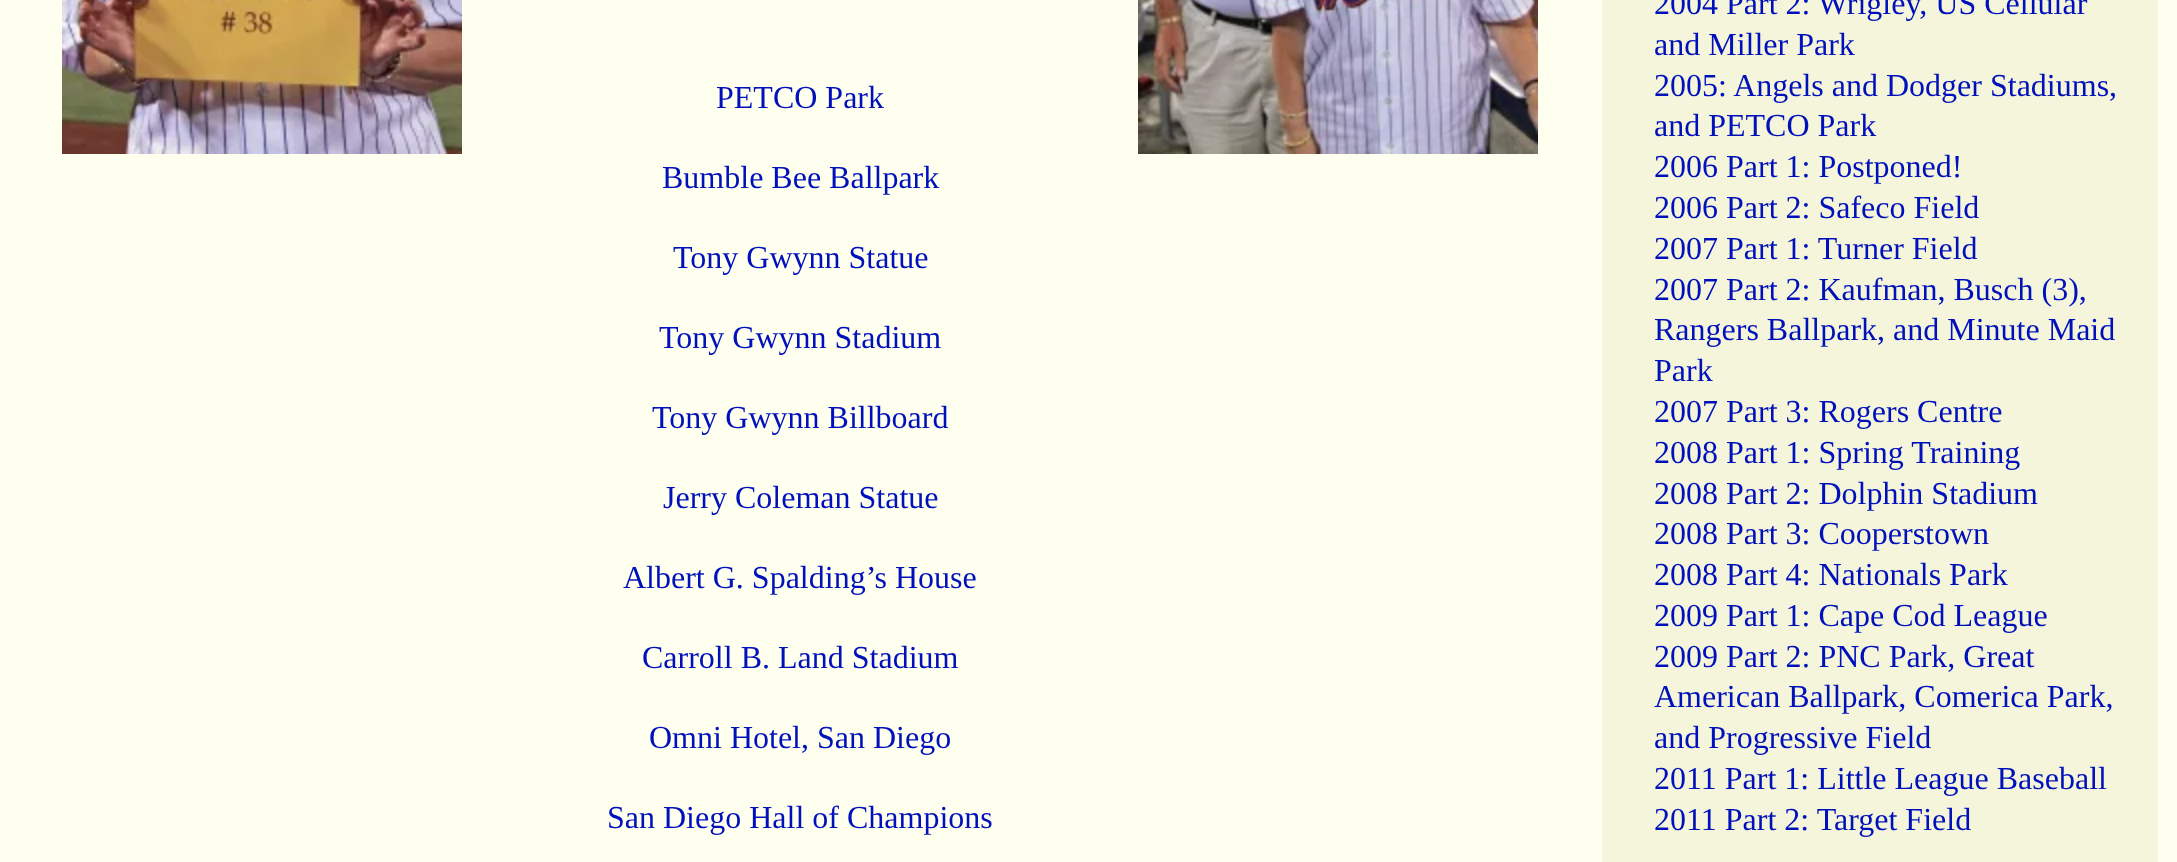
async function draw(canvas) {
  canvas.width = 2177
  canvas.height = 862
  const ctx = canvas.getContext('2d')
  ctx.miterLimit = 4
  ctx.fontKerning = 'normal'
  async function loadImage(src) {
    const img = new Image()
    img.src = src
    await img.decode()
    return img
  }

  ctx.fillStyle = '#fffff0'
  ctx.fillRect(0, 0, 2177, 862)
  ctx.drawImage(await loadImage('image0.png'), 62, 0, 400, 154)
  ctx.drawImage(await loadImage('image1.png'), 1138, 0, 400, 154)
  ctx.font = '32px Liberation Serif'
  ctx.fillStyle = '#01b'
  ctx.fillText('PETCO Park', 716, 108)
  ctx.fillText('Bumble Bee Ballpark', 662, 188)
  ctx.fillText('Tony Gwynn Statue', 673, 268)
  ctx.fillText('Tony Gwynn Stadium', 659, 348)
  ctx.fillText('Tony Gwynn Billboard', 652, 428)
  ctx.fillText('Jerry Coleman Statue', 663, 508)
  ctx.fillText('Albert G. Spalding’s House', 623, 588)
  ctx.fillText('Carroll B. Land Stadium', 642, 668)
  ctx.fillText('Omni Hotel, San Diego', 649, 748)
  ctx.fillText('San Diego Hall of Champions', 607, 828)
  ctx.fillStyle = '#f5f5dc'
  ctx.fillRect(1602, 0, 556, 862)
  ctx.fillStyle = '#01b'
  ctx.fillText('2004 Part 2: Wrigley, US Cellular', 1654, 14)
  ctx.fillText('and Miller Park', 1654, 55)
  ctx.fillText('2005: Angels and Dodger Stadiums,', 1654, 96)
  ctx.fillText('and PETCO Park', 1654, 136)
  ctx.fillText('2006 Part 1: Postponed!', 1654, 177)
  ctx.fillText('2006 Part 2: Safeco Field', 1654, 218)
  ctx.fillText('2007 Part 1: Turner Field', 1654, 259)
  ctx.fillText('2007 Part 2: Kaufman, Busch (3),', 1654, 300)
  ctx.fillText('Rangers Ballpark, and Minute Maid', 1654, 340)
  ctx.fillText('Park', 1654, 381)
  ctx.fillText('2007 Part 3: Rogers Centre', 1654, 422)
  ctx.fillText('2008 Part 1: Spring Training', 1654, 463)
  ctx.fillText('2008 Part 2: Dolphin Stadium', 1654, 504)
  ctx.fillText('2008 Part 3: Cooperstown', 1654, 544)
  ctx.fillText('2008 Part 4: Nationals Park', 1654, 585)
  ctx.fillText('2009 Part 1: Cape Cod League', 1654, 626)
  ctx.fillText('2009 Part 2: PNC Park, Great', 1654, 667)
  ctx.fillText('American Ballpark, Comerica Park,', 1654, 707)
  ctx.fillText('and Progressive Field', 1654, 748)
  ctx.fillText('2011 Part 1: Little League Baseball', 1654, 789)
  ctx.fillText('2011 Part 2: Target Field', 1654, 830)
}

draw(document.querySelector('canvas'))
